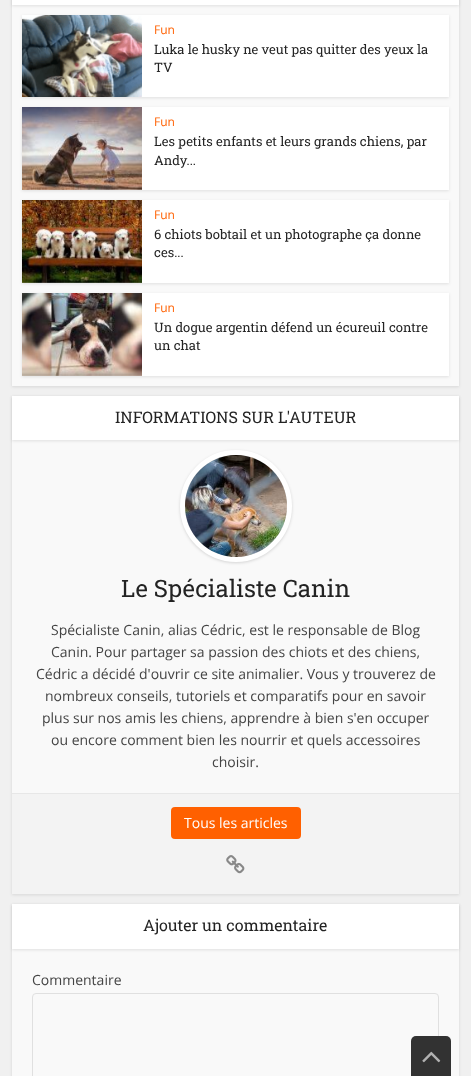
async function draw(canvas) {
  canvas.width = 471
  canvas.height = 1076
  const ctx = canvas.getContext('2d')
  ctx.miterLimit = 4
  ctx.fontKerning = 'normal'
  async function loadImage(src) {
    const img = new Image()
    img.src = src
    await img.decode()
    return img
  }

  ctx.fillStyle = '#f0f0f0'
  ctx.fillRect(0, 0, 471, 1076)
  ctx.fillStyle = '#0000001a'
  ctx.filter = 'blur(1.5px)'
  ctx.beginPath()
  ctx.rect(12, -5, 447, 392)
  ctx.fill()
  ctx.filter = 'none'
  ctx.fillStyle = '#f9f9f9'
  ctx.fillRect(12, 5, 447, 381)
  ctx.fillStyle = '#0000001a'
  ctx.filter = 'blur(1.5px)'
  ctx.beginPath()
  ctx.rect(12, -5, 447, 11)
  ctx.fill()
  ctx.filter = 'none'
  ctx.fillStyle = '#fff'
  ctx.fillRect(12, 0, 447, 5)
  ctx.fillStyle = '#0000001a'
  ctx.filter = 'blur(1.5px)'
  ctx.beginPath()
  ctx.rect(22, 16, 427, 82)
  ctx.fill()
  ctx.filter = 'none'
  ctx.fillStyle = '#fff'
  ctx.fillRect(142, 15, 307, 82)
  ctx.drawImage(await loadImage('image0.png'), 22, 15, 120, 82)
  ctx.font = '12px Open Sans'
  ctx.fillStyle = '#ff6000'
  ctx.fillText('Fun', 154, 34)
  ctx.font = '13px Roboto Slab'
  ctx.fillStyle = '#232323'
  ctx.fillText('Luka le husky ne veut pas quitter des yeux la', 154, 54)
  ctx.fillText('TV', 154, 72)
  ctx.fillStyle = '#0000001a'
  ctx.filter = 'blur(1.5px)'
  ctx.beginPath()
  ctx.rect(22, 108, 427, 83)
  ctx.fill()
  ctx.filter = 'none'
  ctx.fillStyle = '#fff'
  ctx.fillRect(22, 107, 427, 83)
  ctx.drawImage(await loadImage('image1.png'), 22, 107, 120, 83)
  ctx.font = '12px Open Sans'
  ctx.fillStyle = '#ff6000'
  ctx.fillText('Fun', 154, 126)
  ctx.font = '13px Roboto Slab'
  ctx.fillStyle = '#232323'
  ctx.fillText('Les petits enfants et leurs grands chiens, par', 154, 146)
  ctx.fillText('Andy...', 154, 165)
  ctx.fillStyle = '#0000001a'
  ctx.filter = 'blur(1.5px)'
  ctx.beginPath()
  ctx.rect(22, 201, 427, 83)
  ctx.fill()
  ctx.filter = 'none'
  ctx.fillStyle = '#fff'
  ctx.fillRect(22, 200, 427, 83)
  ctx.drawImage(await loadImage('image2.png'), 22, 200, 120, 83)
  ctx.font = '12px Open Sans'
  ctx.fillStyle = '#ff6000'
  ctx.fillText('Fun', 154, 219)
  ctx.font = '13px Roboto Slab'
  ctx.fillStyle = '#232323'
  ctx.fillText('6 chiots bobtail et un photographe ça donne', 154, 239)
  ctx.fillText('ces...', 154, 257)
  ctx.fillStyle = '#0000001a'
  ctx.filter = 'blur(1.5px)'
  ctx.beginPath()
  ctx.rect(22, 294, 427, 83)
  ctx.fill()
  ctx.filter = 'none'
  ctx.fillStyle = '#fff'
  ctx.fillRect(22, 293, 427, 83)
  ctx.drawImage(await loadImage('image3.png'), 22, 293, 120, 83)
  ctx.font = '12px Open Sans'
  ctx.fillStyle = '#ff6000'
  ctx.fillText('Fun', 154, 312)
  ctx.font = '13px Roboto Slab'
  ctx.fillStyle = '#232323'
  ctx.fillText('Un dogue argentin défend un écureuil contre', 154, 332)
  ctx.fillText('un chat', 154, 350)
  ctx.fillStyle = '#0000001a'
  ctx.filter = 'blur(1.5px)'
  ctx.beginPath()
  ctx.rect(12, 397, 447, 498)
  ctx.fill()
  ctx.filter = 'none'
  ctx.fillStyle = '#f9f9f9'
  ctx.fillRect(12, 440, 447, 353)
  ctx.fillStyle = '#0000001a'
  ctx.filter = 'blur(1.5px)'
  ctx.beginPath()
  ctx.rect(12, 397, 447, 44)
  ctx.fill()
  ctx.filter = 'none'
  ctx.fillStyle = '#fff'
  ctx.fillRect(12, 396, 447, 44)
  ctx.font = '16px Roboto Slab'
  ctx.fillStyle = '#232323'
  ctx.fillText('INFORMATIONS SUR L\'AUTEUR', 115, 423)
  ctx.fillStyle = '#00000026'
  ctx.filter = 'blur(1.5px)'
  ctx.beginPath()
  ctx.roundRect(180, 451, 112, 112, 56)
  ctx.fill()
  ctx.filter = 'none'
  ctx.beginPath()
  ctx.arc(236, 506, 53.5, 0, 2 * Math.PI)
  ctx.strokeStyle = '#fff'
  ctx.lineWidth = 5
  ctx.stroke()
  ctx.drawImage(await loadImage('image4.png'), 185, 455, 102, 102)
  ctx.font = '24px Roboto Slab'
  ctx.fillStyle = '#232323'
  ctx.fillText('Le Spécialiste Canin', 121, 597)
  ctx.font = '14px Open Sans'
  ctx.fillStyle = '#444'
  ctx.fillText('Spécialiste Canin, alias Cédric, est le responsable de Blog', 51, 635)
  ctx.fillText('Canin. Pour partager sa passion des chiots et des chiens,', 51, 657)
  ctx.fillText('Cédric a décidé d\'ouvrir ce site animalier. Vous y trouverez de', 36, 679)
  ctx.fillText('nombreux conseils, tutoriels et comparatifs pour en savoir', 45, 701)
  ctx.fillText('plus sur nos amis les chiens, apprendre à bien s\'en occuper', 42, 723)
  ctx.fillText('ou encore comment bien les nourrir et quels accessoires', 51, 745)
  ctx.fillText('choisir.', 212, 767)
  ctx.fillStyle = '#f3f3f3'
  ctx.fillRect(12, 794, 447, 100)
  ctx.fillStyle = '#e7e7e7'
  ctx.fillRect(12, 793, 447, 1)
  ctx.fillStyle = '#ff6000'
  ctx.beginPath()
  ctx.roundRect(171, 807, 130, 32, 4)
  ctx.fill()
  ctx.fillStyle = '#fff'
  ctx.fillText('Tous les articles', 184, 828)
  ctx.drawImage(await loadImage('image5.png'), 226, 855, 19, 19)
  ctx.fillStyle = '#0000001a'
  ctx.filter = 'blur(1.5px)'
  ctx.beginPath()
  ctx.rect(12, 905, 447, 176)
  ctx.fill()
  ctx.filter = 'none'
  ctx.fillStyle = '#f9f9f9'
  ctx.fillRect(12, 949, 447, 127)
  ctx.fillStyle = '#0000001a'
  ctx.filter = 'blur(1.5px)'
  ctx.beginPath()
  ctx.rect(12, 905, 447, 45)
  ctx.fill()
  ctx.filter = 'none'
  ctx.fillStyle = '#fff'
  ctx.fillRect(12, 904, 447, 45)
  ctx.font = '16px Roboto Slab'
  ctx.fillStyle = '#232323'
  ctx.fillText('Ajouter un commentaire', 143, 931)
  ctx.font = '14px Open Sans'
  ctx.fillStyle = '#444'
  ctx.fillText('Commentaire', 32, 985)
  ctx.beginPath()
  ctx.roundRect(32.5, 993.5, 406, 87, 3.5)
  ctx.strokeStyle = '#e0e0e0'
  ctx.lineWidth = 1
  ctx.stroke()
  ctx.fillStyle = '#323232'
  ctx.beginPath()
  ctx.roundRect(411, 1036, 40, 40, [5, 5, 0, 0])
  ctx.fill()
  ctx.drawImage(await loadImage('image6.png'), 422, 1051, 19, 12)
}

draw(document.querySelector('canvas'))
